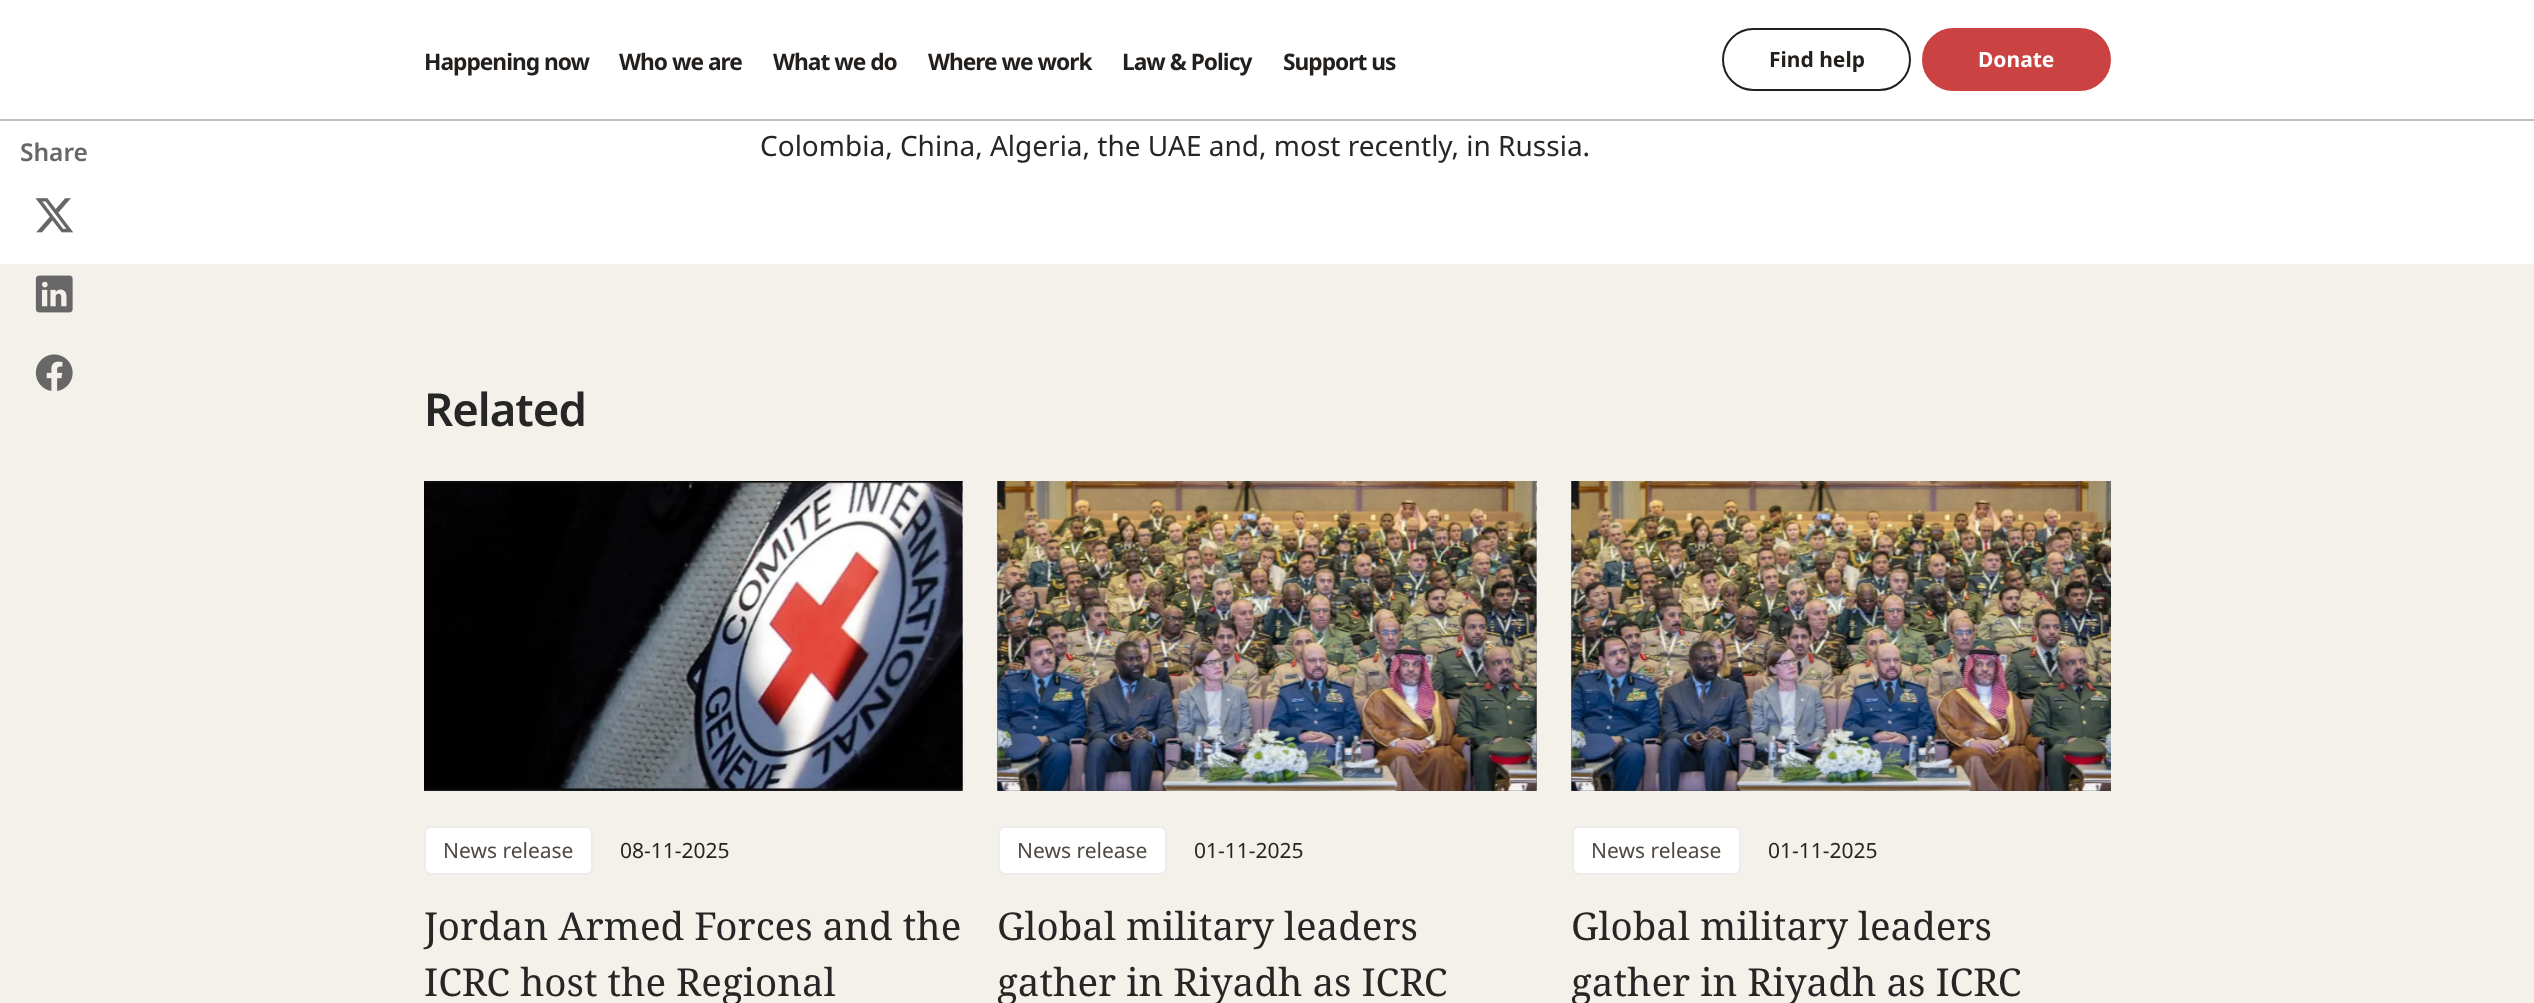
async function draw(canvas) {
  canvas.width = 2534
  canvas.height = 1003
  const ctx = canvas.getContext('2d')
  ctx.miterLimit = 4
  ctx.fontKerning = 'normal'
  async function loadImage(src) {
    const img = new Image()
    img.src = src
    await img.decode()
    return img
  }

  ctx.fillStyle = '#fff'
  ctx.fillRect(0, 0, 2534, 1003)
  ctx.fillStyle = '#c1c1c1'
  ctx.fillRect(0, 119, 2534, 2)
  ctx.letterSpacing = '-1px'
  ctx.font = 'bold 22.75px Noto Sans'
  ctx.fillStyle = '#221f1d'
  ctx.fillText('Happening now', 424, 70)
  ctx.fillText('Who we are', 619, 70)
  ctx.fillText('What we do', 773, 70)
  ctx.fillText('Where we work', 928, 70)
  ctx.fillText('Law & Policy', 1122, 70)
  ctx.fillText('Support us', 1283, 70)
  ctx.beginPath()
  ctx.roundRect(1723, 29, 187, 61, 30.5)
  ctx.strokeStyle = '#221f1d'
  ctx.lineWidth = 2
  ctx.stroke()
  ctx.letterSpacing = '0px'
  ctx.font = 'bold 21px Noto Sans'
  ctx.fillText('Find help', 1769, 67)
  ctx.fillStyle = '#ca4242'
  ctx.beginPath()
  ctx.roundRect(1923, 29, 187, 61, 30.5)
  ctx.fill()
  ctx.strokeStyle = '#ca4242'
  ctx.stroke()
  ctx.fillStyle = '#fff'
  ctx.fillText('Donate', 1978, 67)
  ctx.font = '600 24.5px Noto Sans'
  ctx.fillStyle = '#676767'
  ctx.fillText('Share', 20, 161)
  ctx.drawImage(await loadImage('image0.png'), 35, 198, 39, 35)
  ctx.fillStyle = '#f4f0ea'
  ctx.fillRect(0, 264, 2534, 739)
  ctx.drawImage(await loadImage('image1.png'), 35, 275, 38, 38)
  ctx.drawImage(await loadImage('image2.png'), 35, 354, 38, 37)
  ctx.font = '28px Noto Sans'
  ctx.fillStyle = '#262626'
  ctx.fillText('Colombia, China, Algeria, the UAE and, most recently, in Russia.', 760, 156)
  ctx.letterSpacing = '-1px'
  ctx.font = '600 45.5px Noto Sans'
  ctx.fillText('Related', 424, 426)
  ctx.drawImage(await loadImage('image3.png'), 424, 481, 539, 310)
  ctx.drawImage(await loadImage('image4.png'), 424, 481, 539, 310)
  ctx.fillStyle = '#fff'
  ctx.beginPath()
  ctx.roundRect(425, 827, 167, 47, 6)
  ctx.fill()
  ctx.strokeStyle = '#ececec'
  ctx.stroke()
  ctx.letterSpacing = '0px'
  ctx.font = '21px Noto Sans'
  ctx.fillStyle = '#4f4943'
  ctx.fillText('News release', 443, 858)
  ctx.fillStyle = '#262626'
  ctx.fillText('08-11-2025', 620, 858)
  ctx.font = '38.5px Noto Serif'
  ctx.fillText('Jordan Armed Forces and the', 424, 940)
  ctx.fillText('ICRC host the Regional', 424, 996)
  ctx.drawImage(await loadImage('image5.png'), 997, 481, 540, 310)
  ctx.drawImage(await loadImage('image6.png'), 997, 481, 540, 310)
  ctx.fillStyle = '#fff'
  ctx.beginPath()
  ctx.roundRect(999, 827, 167, 47, 6)
  ctx.fill()
  ctx.stroke()
  ctx.font = '21px Noto Sans'
  ctx.fillStyle = '#4f4943'
  ctx.fillText('News release', 1017, 858)
  ctx.fillStyle = '#262626'
  ctx.fillText('01-11-2025', 1194, 858)
  ctx.font = '38.5px Noto Serif'
  ctx.fillText('Global military leaders', 997, 940)
  ctx.fillText('gather in Riyadh as ICRC', 997, 996)
  ctx.drawImage(await loadImage('image7.png'), 1571, 481, 540, 310)
  ctx.drawImage(await loadImage('image8.png'), 1571, 481, 540, 310)
  ctx.fillStyle = '#fff'
  ctx.beginPath()
  ctx.roundRect(1573, 827, 167, 47, 6)
  ctx.fill()
  ctx.stroke()
  ctx.font = '21px Noto Sans'
  ctx.fillStyle = '#4f4943'
  ctx.fillText('News release', 1591, 858)
  ctx.fillStyle = '#262626'
  ctx.fillText('01-11-2025', 1768, 858)
  ctx.font = '38.5px Noto Serif'
  ctx.fillText('Global military leaders', 1571, 940)
  ctx.fillText('gather in Riyadh as ICRC', 1571, 996)
}

draw(document.querySelector('canvas'))
